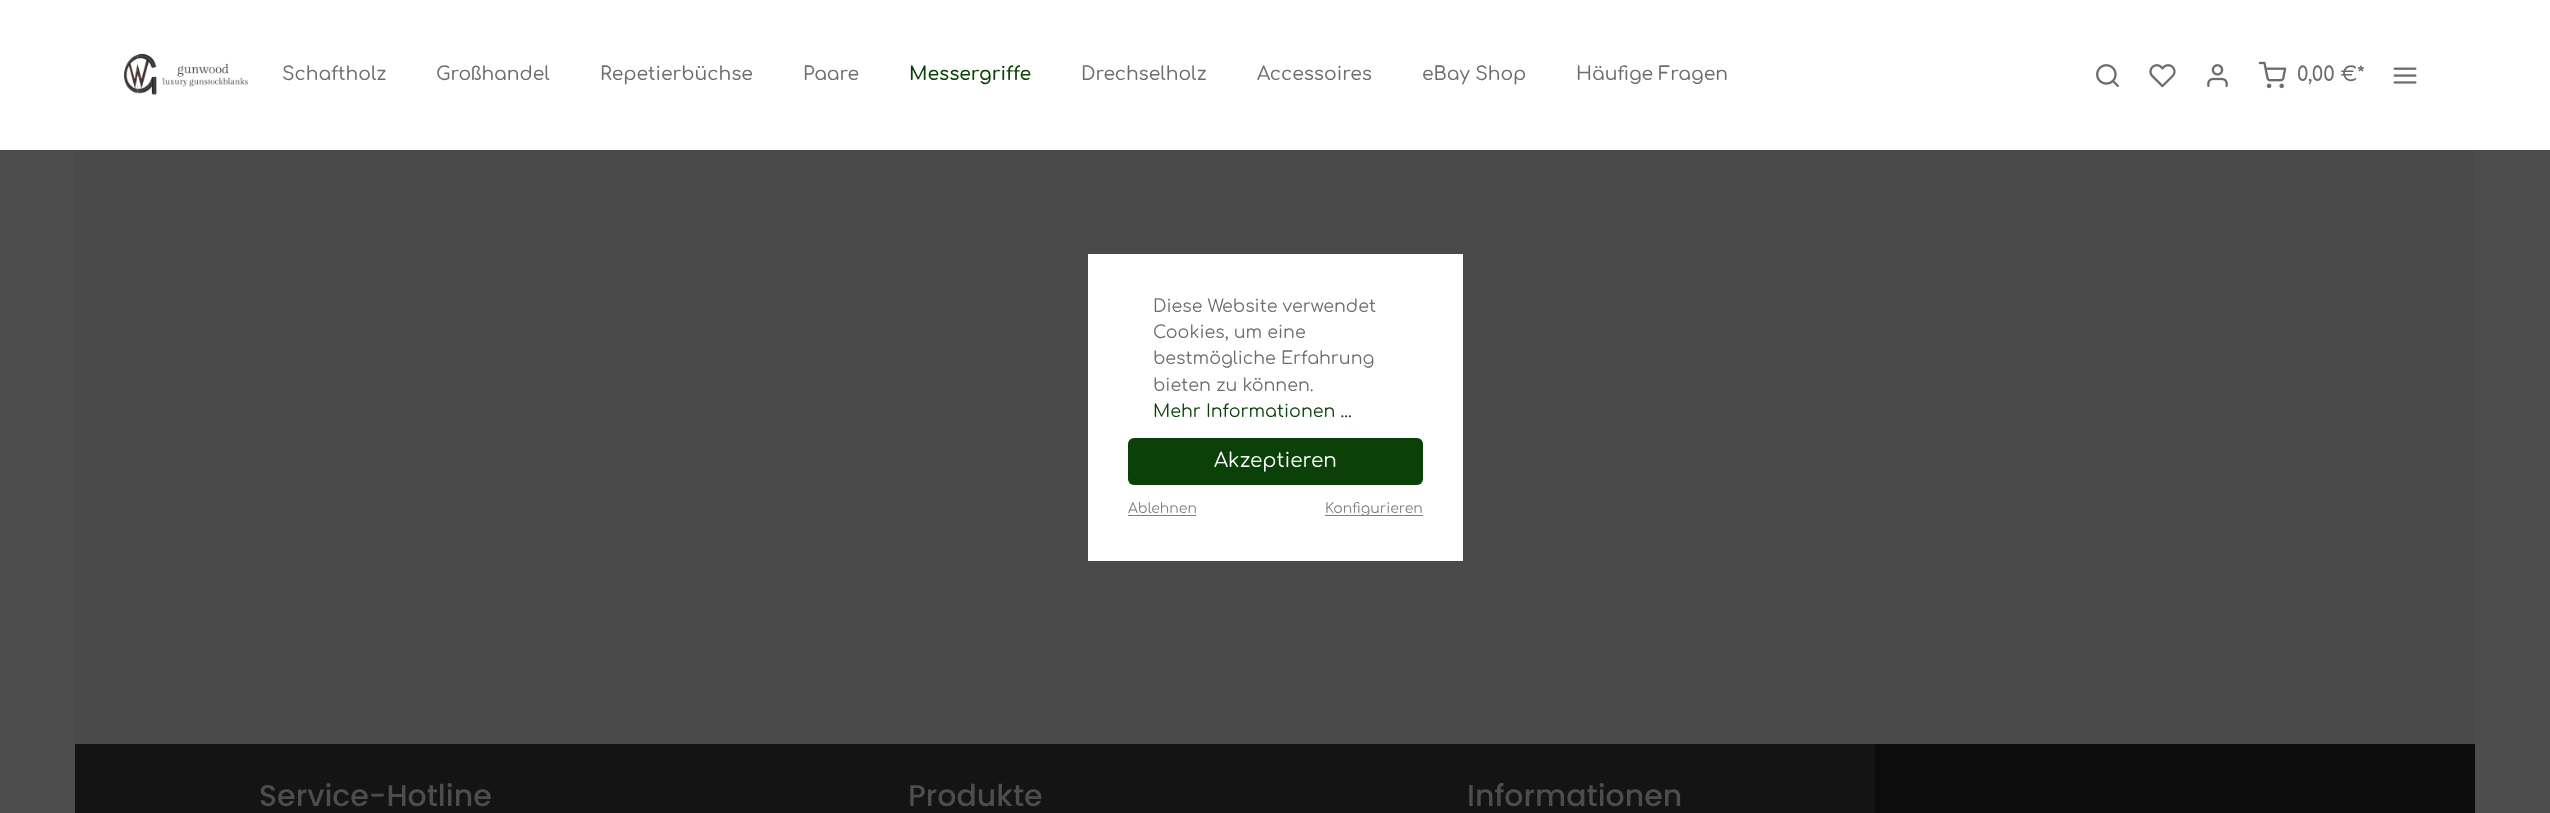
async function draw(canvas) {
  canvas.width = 2550
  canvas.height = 813
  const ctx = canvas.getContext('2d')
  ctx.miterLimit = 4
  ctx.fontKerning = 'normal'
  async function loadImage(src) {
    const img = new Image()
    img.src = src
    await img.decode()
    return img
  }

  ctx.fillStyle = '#4d4d4d'
  ctx.fillRect(0, 0, 2550, 813)
  ctx.fillStyle = '#fff'
  ctx.fillRect(0, 0, 2550, 150)
  ctx.drawImage(await loadImage('image0.png'), 123, 53, 125, 43)
  ctx.font = '500 18.75px Comfortaa'
  ctx.fillStyle = '#6d6d6d'
  ctx.fillText('Schaftholz', 282, 80)
  ctx.fillText('Großhandel', 436, 80)
  ctx.fillText('Repetierbüchse', 600, 80)
  ctx.fillText('Paare', 803, 80)
  ctx.font = '600 18.75px Comfortaa'
  ctx.fillStyle = '#0b4008'
  ctx.fillText('Messergriffe', 909, 80)
  ctx.font = '500 18.75px Comfortaa'
  ctx.fillStyle = '#6d6d6d'
  ctx.fillText('Drechselholz', 1081, 80)
  ctx.fillText('Accessoires', 1257, 80)
  ctx.fillText('eBay Shop', 1422, 80)
  ctx.fillText('Häufige Fragen', 1576, 80)
  ctx.drawImage(await loadImage('image1.png'), 2096, 64, 23, 23)
  ctx.drawImage(await loadImage('image2.png'), 2149, 64, 27, 24)
  ctx.drawImage(await loadImage('image3.png'), 2207, 64, 21, 23)
  ctx.drawImage(await loadImage('image4.png'), 2258, 61, 29, 28)
  ctx.font = '600 20px Comfortaa'
  ctx.fillText('0,00 €*', 2297, 81)
  ctx.drawImage(await loadImage('image5.png'), 2393, 67, 24, 17)
  ctx.fillStyle = '#4a4a4a'
  ctx.fillRect(75, 150, 2400, 594)
  ctx.fillStyle = '#141414'
  ctx.fillRect(75, 744, 1800, 69)
  ctx.font = '500 30px Poppins'
  ctx.fillStyle = '#4d4d4d'
  ctx.fillText('Service-Hotline', 259, 806)
  ctx.fillText('Produkte', 908, 806)
  ctx.fillText('Informationen', 1467, 806)
  ctx.fillStyle = '#0d0d0d'
  ctx.fillRect(1875, 744, 600, 69)
  ctx.fillStyle = '#fff'
  ctx.fillRect(1088, 254, 375, 307)
  ctx.font = '17.5px Comfortaa'
  ctx.fillStyle = '#6d6d6d'
  ctx.fillText('Diese Website verwendet', 1153, 312)
  ctx.fillText('Cookies, um eine', 1153, 338)
  ctx.fillText('bestmögliche Erfahrung', 1153, 364)
  ctx.fillText('bieten zu können.', 1153, 391)
  ctx.fillStyle = '#0b4008'
  ctx.fillText('Mehr Informationen ...', 1153, 417)
  ctx.beginPath()
  ctx.roundRect(1128, 438, 295, 47, 6)
  ctx.fill()
  ctx.font = '20px Comfortaa'
  ctx.fillStyle = '#fff'
  ctx.fillText('Akzeptieren', 1214, 467)
  ctx.font = '14px Comfortaa'
  ctx.fillStyle = '#808080'
  ctx.fillText('Ablehnen', 1128, 513)
  ctx.fillRect(1128, 515, 68, 1)
  ctx.fillRect(1325, 515, 98, 1)
  ctx.fillText('Konfigurieren', 1325, 513)
}

draw(document.querySelector('canvas'))
